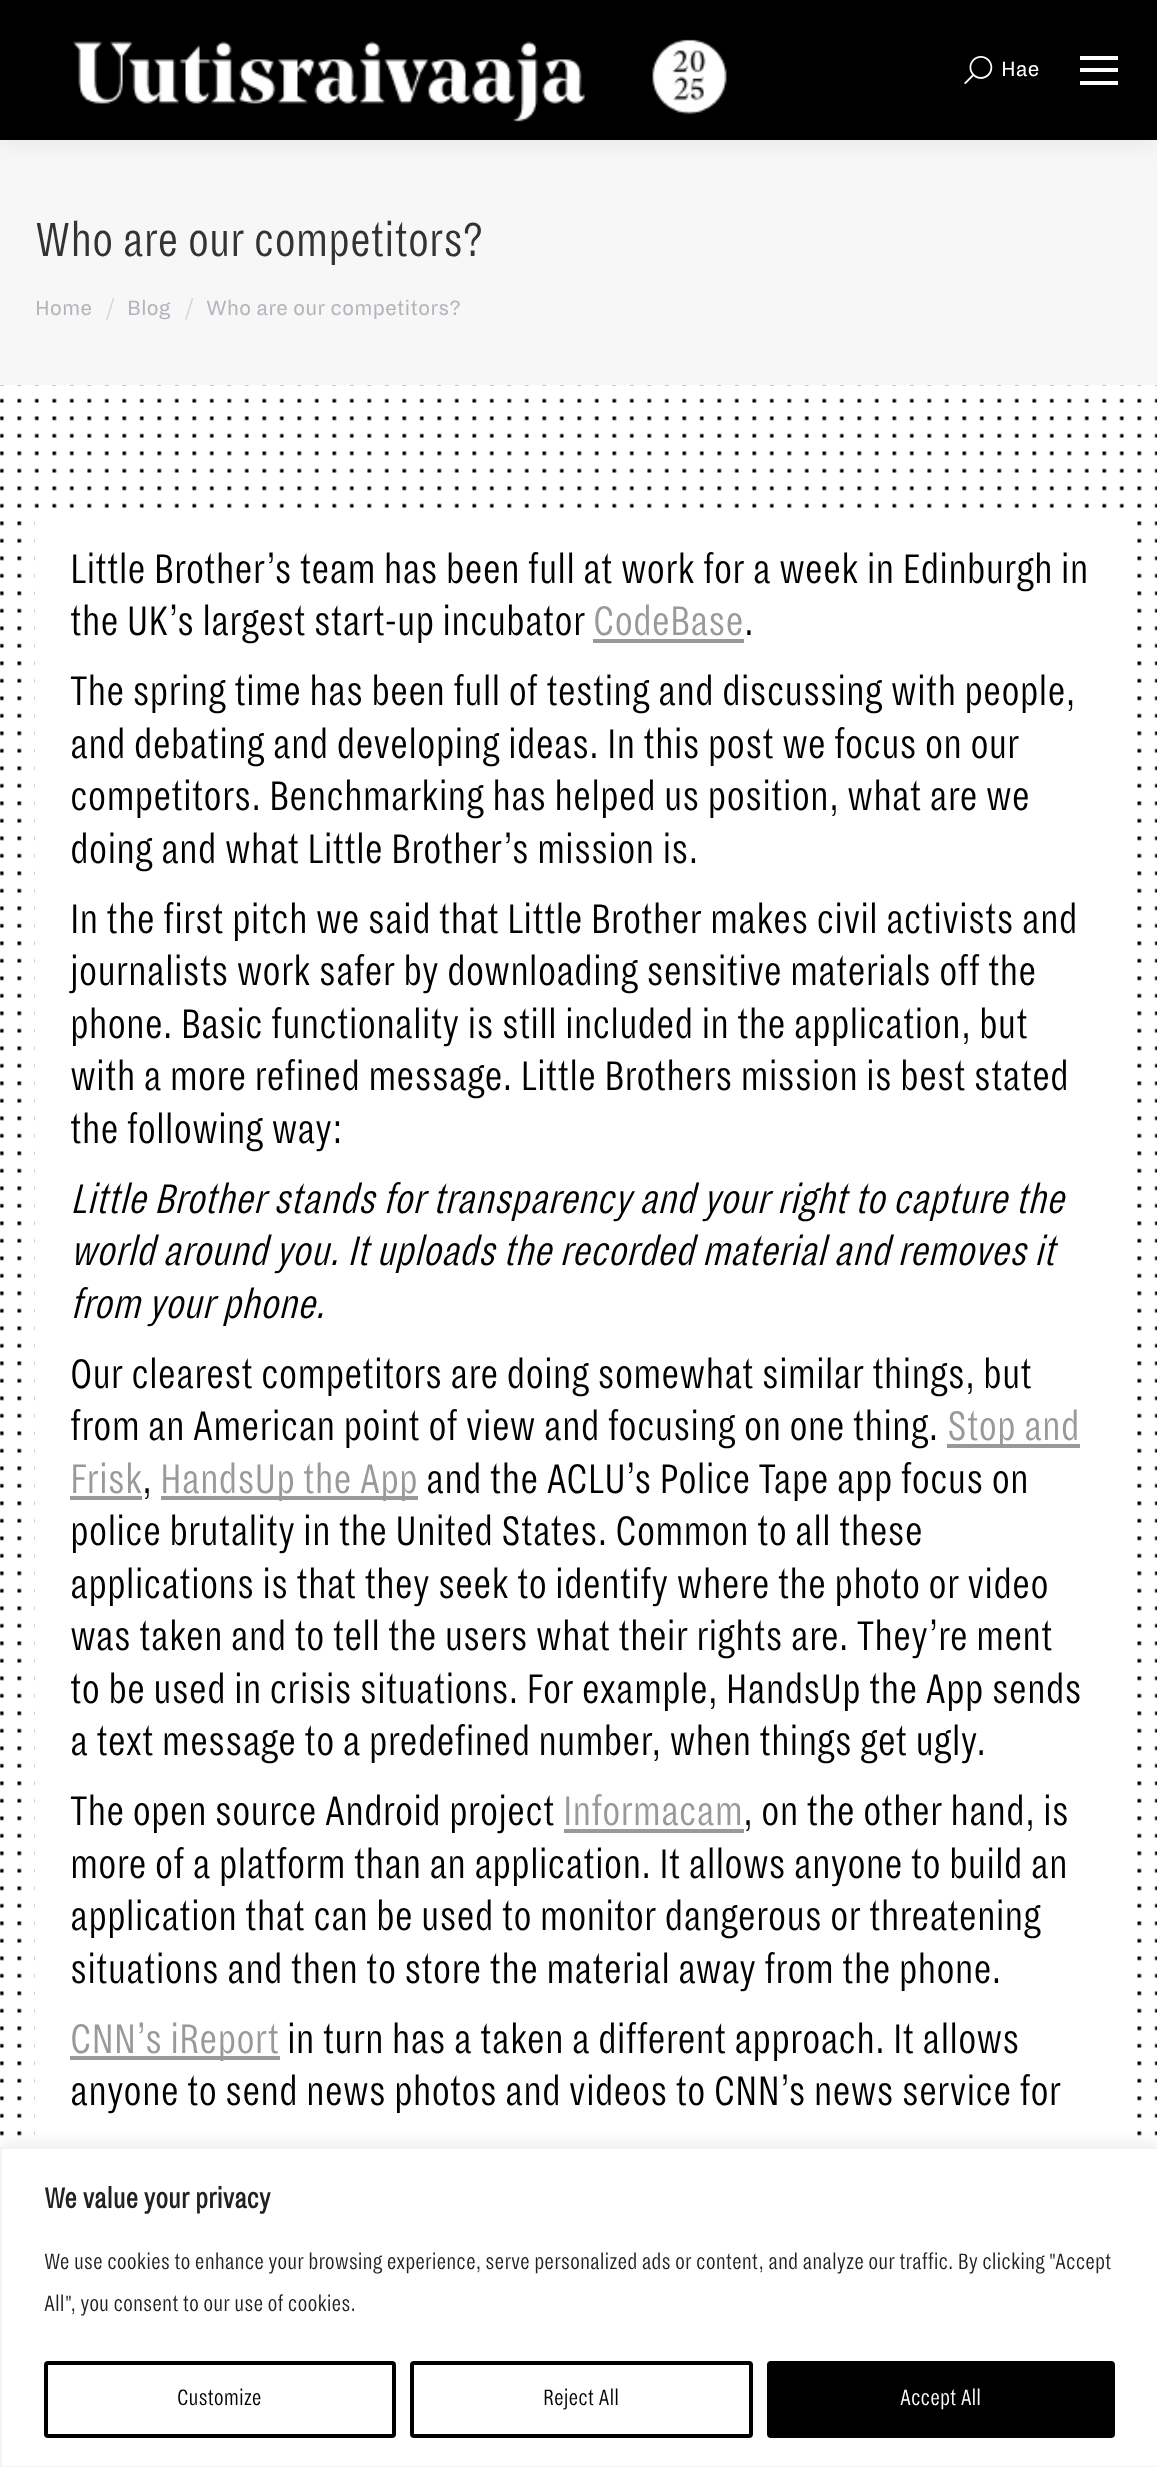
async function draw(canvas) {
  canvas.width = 1157
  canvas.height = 2467
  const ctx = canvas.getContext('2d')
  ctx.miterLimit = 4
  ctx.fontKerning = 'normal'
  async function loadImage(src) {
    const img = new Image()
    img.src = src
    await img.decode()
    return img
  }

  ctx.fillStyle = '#fff'
  ctx.fillRect(0, 0, 1157, 2467)
  ctx.drawImage(await loadImage('image0.png'), 0, 385, 1157, 1751)
  ctx.fillStyle = '#f7f7f7'
  ctx.fillRect(0, 140, 1157, 245)
  ctx.fillStyle = '#00000012'
  ctx.filter = 'blur(13px)'
  ctx.beginPath()
  ctx.rect(-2, -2, 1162, 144)
  ctx.fill()
  ctx.filter = 'none'
  ctx.fillStyle = '#000'
  ctx.fillRect(0, 0, 1157, 140)
  ctx.drawImage(await loadImage('image1.png'), 73, 39, 654, 83)
  ctx.drawImage(await loadImage('image2.png'), 964, 56, 29, 28)
  ctx.font = '22.75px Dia'
  ctx.fillStyle = '#fff'
  ctx.fillText('Hae', 1001, 76)
  ctx.fillRect(1080, 56, 38, 4)
  ctx.fillRect(1080, 68, 38, 4)
  ctx.fillRect(1080, 81, 38, 4)
  ctx.font = '300 52.5px Dia'
  ctx.fillStyle = '#333'
  ctx.fillText('Who are our competitors?', 35, 256)
  ctx.font = '22.75px Dia'
  ctx.fillStyle = '#b4b5bb'
  ctx.fillText('Home', 35, 315)
  ctx.fillStyle = '#d6d6d9'
  ctx.fillText('/', 106, 315)
  ctx.fillStyle = '#b4b5bb'
  ctx.fillText('Blog', 127, 315)
  ctx.fillStyle = '#d6d6d9'
  ctx.fillText('/', 185, 315)
  ctx.fillStyle = '#b4b5bb'
  ctx.fillText('Who are our competitors?', 206, 315)
  ctx.fillStyle = '#fff'
  ctx.fillRect(35, 521, 1089, 1615)
  ctx.font = '300 45.5px Dia'
  ctx.fillStyle = '#000'
  ctx.fillText('Little Brother’s team has been full at work for a week in Edinburgh in', 70, 583)
  ctx.fillText('the UK’s largest start-up incubator', 70, 635)
  ctx.fillStyle = '#999'
  ctx.fillText('CodeBase', 593, 635)
  ctx.fillRect(593, 639, 151, 4)
  ctx.fillStyle = '#000'
  ctx.fillText('.', 744, 635)
  ctx.fillText('The spring time has been full of testing and discussing with people,', 70, 705)
  ctx.fillText('and debating and developing ideas. In this post we focus on our', 70, 758)
  ctx.fillText('competitors. Benchmarking has helped us position, what are we', 70, 810)
  ctx.fillText('doing and what Little Brother’s mission is.', 70, 863)
  ctx.fillText('In the first pitch we said that Little Brother makes civil activists and', 70, 933)
  ctx.fillText('journalists work safer by downloading sensitive materials off the', 70, 985)
  ctx.fillText('phone. Basic functionality is still included in the application, but', 70, 1038)
  ctx.fillText('with a more refined message. Little Brothers mission is best stated', 70, 1090)
  ctx.fillText('the following way:', 70, 1143)
  ctx.font = 'italic 300 45.5px Dia'
  ctx.fillText('Little Brother stands for transparency and your right to capture the', 70, 1213)
  ctx.fillText('world around you. It uploads the recorded material and removes it', 70, 1265)
  ctx.fillText('from your phone.', 70, 1318)
  ctx.font = '300 45.5px Dia'
  ctx.fillText('Our clearest competitors are doing somewhat similar things, but', 70, 1388)
  ctx.fillText('from an American point of view and focusing on one thing.', 70, 1440)
  ctx.fillStyle = '#999'
  ctx.fillRect(947, 1444, 133, 4)
  ctx.fillText('Stop and', 947, 1440)
  ctx.fillText('Frisk', 70, 1493)
  ctx.fillRect(70, 1496, 72, 4)
  ctx.fillStyle = '#000'
  ctx.fillText(',', 142, 1493)
  ctx.fillStyle = '#999'
  ctx.fillRect(161, 1496, 257, 4)
  ctx.fillText('HandsUp the App', 160, 1493)
  ctx.fillStyle = '#000'
  ctx.fillText('and the ACLU’s Police Tape app focus on', 426, 1493)
  ctx.fillText('police brutality in the United States. Common to all these', 70, 1545)
  ctx.fillText('applications is that they seek to identify where the photo or video', 70, 1598)
  ctx.fillText('was taken and to tell the users what their rights are. They’re ment', 70, 1650)
  ctx.fillText('to be used in crisis situations. For example, HandsUp the App sends', 70, 1703)
  ctx.fillText('a text message to a predefined number, when things get ugly.', 70, 1755)
  ctx.fillText('The open source Android project', 70, 1825)
  ctx.fillStyle = '#999'
  ctx.fillText('Informacam', 563, 1825)
  ctx.fillRect(564, 1829, 180, 4)
  ctx.fillStyle = '#000'
  ctx.fillText(', on the other hand, is', 743, 1825)
  ctx.fillText('more of a platform than an application. It allows anyone to build an', 70, 1878)
  ctx.fillText('application that can be used to monitor dangerous or threatening', 70, 1930)
  ctx.fillText('situations and then to store the material away from the phone.', 70, 1983)
  ctx.fillStyle = '#999'
  ctx.fillRect(70, 2056, 210, 4)
  ctx.fillText('CNN’s iReport', 70, 2053)
  ctx.fillStyle = '#000'
  ctx.fillText('in turn has a taken a different approach. It allows', 287, 2053)
  ctx.fillText('anyone to send news photos and videos to CNN’s news service for', 70, 2105)
  ctx.fillStyle = '#acabab4d'
  ctx.filter = 'blur(9px)'
  ctx.beginPath()
  ctx.rect(0, 2146, 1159, 320)
  ctx.fill()
  ctx.filter = 'none'
  ctx.fillStyle = '#fff'
  ctx.beginPath()
  ctx.rect(1, 2148, 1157, 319)
  ctx.fill()
  ctx.strokeStyle = '#f4f4f4'
  ctx.lineWidth = 2
  ctx.stroke()
  ctx.font = 'bold 31.5px Dia'
  ctx.fillStyle = '#212121'
  ctx.fillText('We value your privacy', 44, 2208)
  ctx.font = '300 24.5px Dia'
  ctx.fillText('We use cookies to enhance your browsing experience, serve personalized ads or content, and analyze our traffic. By clicking "Accept', 44, 2269)
  ctx.fillText('All", you consent to our use of cookies.', 44, 2311)
  ctx.beginPath()
  ctx.roundRect(46, 2363, 348, 73, 2)
  ctx.strokeStyle = '#000'
  ctx.lineWidth = 4
  ctx.stroke()
  ctx.fillStyle = '#000'
  ctx.fillText('Customize', 177, 2405)
  ctx.beginPath()
  ctx.roundRect(412, 2363, 339, 73, 2)
  ctx.stroke()
  ctx.fillText('Reject All', 543, 2405)
  ctx.beginPath()
  ctx.roundRect(769, 2363, 344, 73, 2)
  ctx.fill()
  ctx.stroke()
  ctx.fillStyle = '#fff'
  ctx.fillText('Accept All', 900, 2405)
}

draw(document.querySelector('canvas'))
